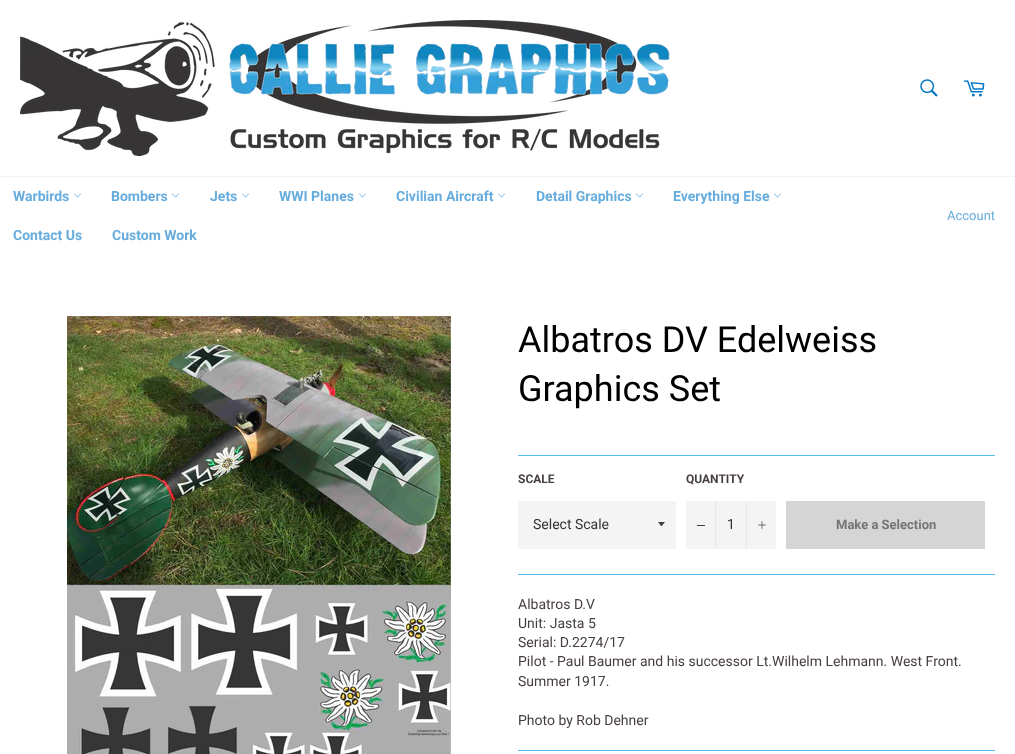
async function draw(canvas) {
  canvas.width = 1015
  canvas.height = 754
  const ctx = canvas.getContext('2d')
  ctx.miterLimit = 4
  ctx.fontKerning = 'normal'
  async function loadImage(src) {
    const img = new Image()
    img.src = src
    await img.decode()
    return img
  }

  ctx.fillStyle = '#fff'
  ctx.fillRect(0, 0, 1015, 754)
  ctx.drawImage(await loadImage('image0.png'), 20, 20, 650, 136)
  ctx.drawImage(await loadImage('image1.png'), 920, 79, 18, 18)
  ctx.drawImage(await loadImage('image2.png'), 963, 80, 22, 17)
  ctx.fillStyle = '#f2f2f2'
  ctx.fillRect(0, 176, 1015, 1)
  ctx.font = 'bold 14px Roboto'
  ctx.fillStyle = '#66acdc'
  ctx.fillText('Warbirds', 13, 201)
  ctx.drawImage(await loadImage('image3.png'), 74, 193, 7, 5)
  ctx.fillText('Bombers', 111, 201)
  ctx.drawImage(await loadImage('image3.png'), 172, 193, 7, 5)
  ctx.fillText('Jets', 210, 201)
  ctx.drawImage(await loadImage('image3.png'), 242, 193, 7, 5)
  ctx.fillText('WWI Planes', 279, 201)
  ctx.drawImage(await loadImage('image3.png'), 359, 193, 7, 5)
  ctx.fillText('Civilian Aircraft', 396, 201)
  ctx.drawImage(await loadImage('image3.png'), 498, 193, 7, 5)
  ctx.fillText('Detail Graphics', 536, 201)
  ctx.drawImage(await loadImage('image3.png'), 636, 193, 7, 5)
  ctx.fillText('Everything Else', 673, 201)
  ctx.drawImage(await loadImage('image3.png'), 774, 193, 7, 5)
  ctx.fillText('Contact Us', 13, 240)
  ctx.fillText('Custom Work', 112, 240)
  ctx.font = '13px Roboto'
  ctx.fillText('Account', 947, 220)
  ctx.drawImage(await loadImage('image4.png'), 67, 316, 384, 438)
  ctx.font = '36px Roboto'
  ctx.fillStyle = '#000'
  ctx.fillText('Albatros DV Edelweiss', 518, 352)
  ctx.fillText('Graphics Set', 518, 401)
  ctx.fillStyle = '#52bbe9'
  ctx.fillRect(518, 455, 477, 1)
  ctx.font = 'bold 12px Roboto'
  ctx.fillStyle = '#473e3e'
  ctx.fillText('SCALE', 518, 483)
  ctx.fillStyle = '#f4f4f4'
  ctx.fillRect(518, 501, 158, 48)
  ctx.fillStyle = '#473e3e'
  ctx.beginPath()
  ctx.moveTo(658, 522)
  ctx.bezierCurveTo(662.5, 527.5, 660.5, 527.5, 665, 522)
  ctx.closePath()
  ctx.fill()
  ctx.font = '14px Roboto'
  ctx.fillStyle = '#333'
  ctx.fillText('Select Scale', 533, 529)
  ctx.font = 'bold 12px Roboto'
  ctx.fillStyle = '#473e3e'
  ctx.fillText('QUANTITY', 686, 483)
  ctx.fillStyle = '#f4f4f4'
  ctx.fillRect(686, 501, 90, 48)
  ctx.fillStyle = '#e7e7e7'
  ctx.fillRect(715, 501, 1, 48)
  ctx.fillStyle = '#473e3e'
  ctx.fillRect(697, 525, 8, 1)
  ctx.font = '14px Roboto'
  ctx.fillStyle = '#333'
  ctx.fillText('1', 727, 529)
  ctx.fillStyle = '#e7e7e7'
  ctx.fillRect(746, 501, 1, 48)
  ctx.drawImage(await loadImage('image5.png'), 758, 521, 8, 8)
  ctx.fillStyle = '#d5d5d5'
  ctx.fillRect(786, 501, 199, 48)
  ctx.font = 'bold 13px Roboto'
  ctx.fillStyle = '#757575'
  ctx.fillText('Make a Selection', 836, 529)
  ctx.fillStyle = '#52bbe9'
  ctx.fillRect(518, 574, 477, 1)
  ctx.font = '14px Roboto'
  ctx.fillStyle = '#473e3e'
  ctx.fillText('Albatros D.V', 518, 609)
  ctx.fillText('Unit: Jasta 5', 518, 628)
  ctx.fillText('Serial: D.2274/17', 518, 647)
  ctx.fillText('Pilot - Paul Baumer and his successor Lt.Wilhelm Lehmann. West Front.', 518, 666)
  ctx.fillText('Summer 1917.', 518, 686)
  ctx.fillText('Photo by Rob Dehner', 518, 725)
  ctx.fillStyle = '#52bbe9'
  ctx.fillRect(518, 750, 477, 1)
}

draw(document.querySelector('canvas'))
